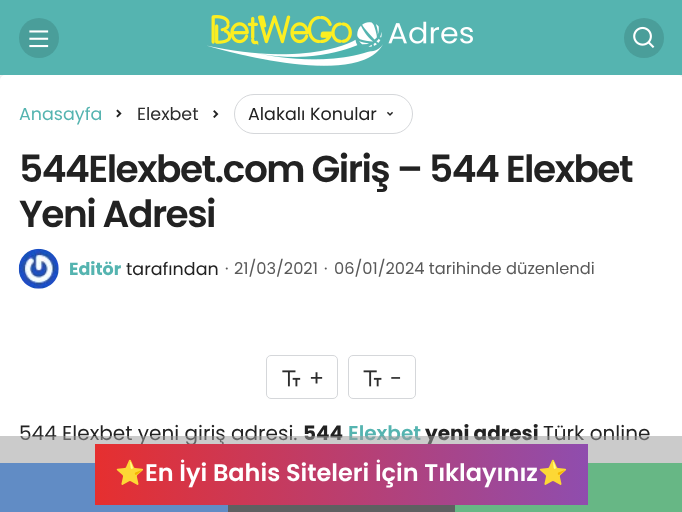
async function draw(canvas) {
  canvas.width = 682
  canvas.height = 512
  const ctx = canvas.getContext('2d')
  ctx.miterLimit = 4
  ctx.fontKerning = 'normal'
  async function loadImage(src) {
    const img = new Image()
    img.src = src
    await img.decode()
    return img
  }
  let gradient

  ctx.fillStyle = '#f8f8f8'
  ctx.fillRect(0, 0, 682, 512)
  ctx.fillStyle = '#0000001a'
  ctx.filter = 'blur(2px)'
  ctx.beginPath()
  ctx.roundRect(0, 75, 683, 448, 5)
  ctx.fill()
  ctx.filter = 'none'
  ctx.fillStyle = '#55b4b0'
  ctx.fillRect(0, 0, 682, 75)
  ctx.fillStyle = '#4a9e9a'
  ctx.beginPath()
  ctx.arc(39, 38, 20, 0, 2 * Math.PI)
  ctx.fill()
  ctx.drawImage(await loadImage('image0.png'), 29, 30, 20, 18)
  ctx.drawImage(await loadImage('image1.png'), 207, 15, 266, 51)
  ctx.beginPath()
  ctx.arc(644, 38, 20, 0, 2 * Math.PI)
  ctx.fill()
  ctx.drawImage(await loadImage('image2.png'), 633, 26, 22, 22)
  ctx.fillStyle = '#fff'
  ctx.beginPath()
  ctx.roundRect(0, 75, 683, 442, 5)
  ctx.fill()
  ctx.font = '17.5px Poppins'
  ctx.fillStyle = '#55b4b0'
  ctx.fillText('Anasayfa', 19, 120)
  ctx.drawImage(await loadImage('image3.png'), 116, 109, 6, 9)
  ctx.fillStyle = '#2d2d2d'
  ctx.fillText('Elexbet', 137, 120)
  ctx.drawImage(await loadImage('image4.png'), 213, 110, 6, 8)
  ctx.beginPath()
  ctx.roundRect(234.5, 94.5, 178, 39, 19.5)
  ctx.strokeStyle = '#d5d7da'
  ctx.stroke()
  ctx.fillStyle = '#222'
  ctx.fillText('Alakalı Konular', 248, 120)
  ctx.drawImage(await loadImage('image5.png'), 387, 111, 6, 5)
  ctx.letterSpacing = '-1.5px'
  ctx.font = '600 37.5px Poppins'
  ctx.fillText('544Elexbet.com Giriş – 544 Elexbet', 19, 182)
  ctx.fillText('Yeni Adresi', 19, 227)
  ctx.drawImage(await loadImage('image6.png'), 18, 248, 41, 41)
  ctx.letterSpacing = '0px'
  ctx.font = 'bold 17.5px Poppins'
  ctx.fillStyle = '#55b4b0'
  ctx.fillText('Editör', 69, 275)
  ctx.font = '17.5px Poppins'
  ctx.fillStyle = '#222'
  ctx.fillText('tarafından', 126, 275)
  ctx.font = '16.25px Poppins'
  ctx.fillStyle = '#595959'
  ctx.fillText('·', 225, 274)
  ctx.fillText('21/03/2021', 234, 274)
  ctx.fillText('·', 324, 274)
  ctx.fillText('06/01/2024 tarihinde düzenlendi', 334, 274)
  ctx.beginPath()
  ctx.roundRect(266.5, 355.5, 71, 43, 4.5)
  ctx.stroke()
  ctx.drawImage(await loadImage('image7.png'), 282, 370, 19, 17)
  ctx.font = '22px Poppins'
  ctx.fillStyle = '#2d2d2d'
  ctx.fillText('+', 309, 386)
  ctx.beginPath()
  ctx.roundRect(348.5, 355.5, 67, 43, 4.5)
  ctx.stroke()
  ctx.drawImage(await loadImage('image8.png'), 363, 370, 19, 17)
  ctx.fillText('-', 390, 386)
  ctx.font = '20px Poppins'
  ctx.fillStyle = '#222'
  ctx.fillText('544 Elexbet yeni giriş adresi.', 19, 440)
  ctx.font = 'bold 20px Poppins'
  ctx.fillText('544', 303, 440)
  ctx.font = '600 20px Poppins'
  ctx.fillStyle = '#55b4b0'
  ctx.fillText('Elexbet', 348, 440)
  ctx.font = 'bold 20px Poppins'
  ctx.fillStyle = '#222'
  ctx.fillText('yeni adresi', 425, 440)
  ctx.font = '20px Poppins'
  ctx.fillText('Türk online', 543, 440)
  ctx.fillStyle = '#1877f2'
  ctx.fillRect(0, 463, 228, 49)
  ctx.fillStyle = '#14171a'
  ctx.fillRect(228, 505, 227, 7)
  ctx.fillStyle = '#25d366'
  ctx.fillRect(455, 463, 227, 49)
  ctx.fillStyle = '#9e9e9e8a'
  ctx.fillRect(0, 436, 682, 76)
  gradient = ctx.createLinearGradient(95, 474, 588, 474)
  gradient.addColorStop(0, '#e62f2f')
  gradient.addColorStop(1, '#8f4dae')
  ctx.fillStyle = gradient
  ctx.fillRect(95, 444, 493, 61)
  ctx.font = 'bold 24px Noto Color Emoji'
  ctx.fillStyle = '#fff'
  ctx.fillText('⭐', 115, 481)
  ctx.font = '600 24px Poppins'
  ctx.fillText('En İyi Bahis Siteleri İçin Tıklayınız', 145, 481)
  ctx.font = 'bold 24px Noto Color Emoji'
  ctx.fillText('⭐', 538, 481)
}

draw(document.querySelector('canvas'))
